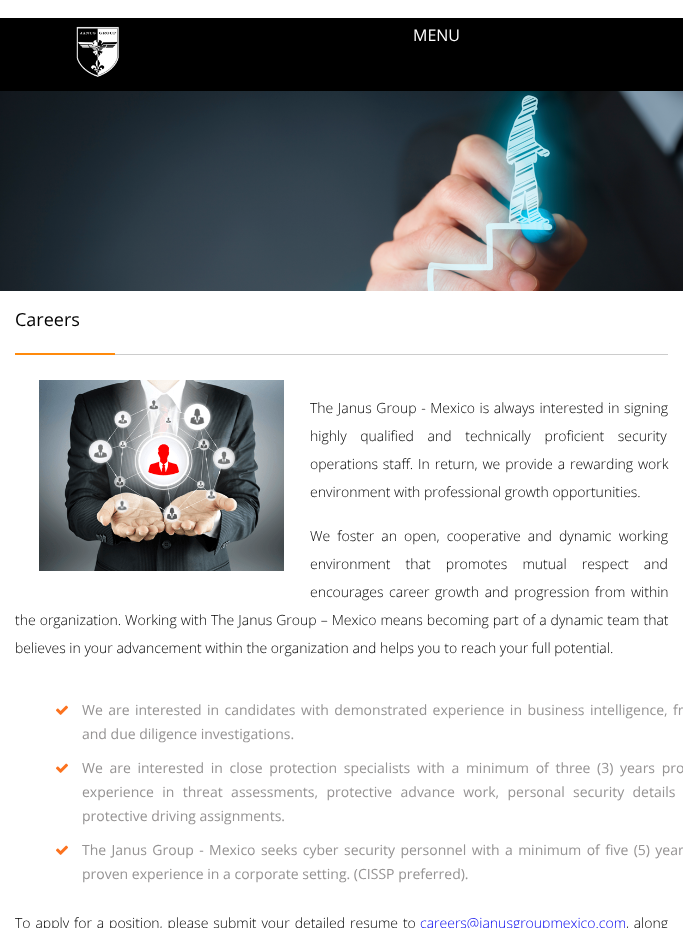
async function draw(canvas) {
  canvas.width = 683
  canvas.height = 928
  const ctx = canvas.getContext('2d')
  ctx.miterLimit = 4
  ctx.fontKerning = 'normal'
  async function loadImage(src) {
    const img = new Image()
    img.src = src
    await img.decode()
    return img
  }

  ctx.fillStyle = '#fff'
  ctx.fillRect(0, 0, 683, 928)
  ctx.fillStyle = '#000'
  ctx.fillRect(0, 18, 683, 73)
  ctx.drawImage(await loadImage('image0.png'), 76, 26, 43, 51)
  ctx.font = '16px Open Sans'
  ctx.fillStyle = '#fff'
  ctx.fillText('MENU', 413, 41)
  ctx.drawImage(await loadImage('image1.png'), 0, 91, 683, 200)
  ctx.fillStyle = '#ccc'
  ctx.fillRect(115, 354, 553, 1)
  ctx.font = '18px Open Sans'
  ctx.fillStyle = '#000'
  ctx.fillText('Careers', 15, 326)
  ctx.fillStyle = '#ff8a0c'
  ctx.fillRect(15, 353, 100, 2)
  ctx.drawImage(await loadImage('image2.png'), 39, 380, 245, 191)
  ctx.wordSpacing = '0.9px'
  ctx.font = '300 14px Open Sans'
  ctx.fillStyle = '#000'
  ctx.fillText('The Janus Group - Mexico is always interested in signing', 310, 413)
  ctx.wordSpacing = '10px'
  ctx.fillText('highly qualified and technically proficient security', 310, 441)
  ctx.wordSpacing = '1.25px'
  ctx.fillText('operations staff. In return, we provide a rewarding work', 310, 469)
  ctx.wordSpacing = '0px'
  ctx.fillText('environment with professional growth opportunities.', 310, 497)
  ctx.wordSpacing = '3.5px'
  ctx.fillText('We foster an open, cooperative and dynamic working', 310, 541)
  ctx.wordSpacing = '11.5px'
  ctx.fillText('environment that promotes mutual respect and', 310, 569)
  ctx.wordSpacing = '2px'
  ctx.fillText('encourages career growth and progression from within', 310, 597)
  ctx.wordSpacing = '0.4px'
  ctx.fillText('the organization. Working with The Janus Group – Mexico means becoming part of a dynamic team that', 15, 625)
  ctx.wordSpacing = '0px'
  ctx.fillText('believes in your advancement within the organization and helps you to reach your full potential.', 15, 653)
  ctx.drawImage(await loadImage('image3.png'), 56, 705, 12, 10)
  ctx.wordSpacing = '1.75px'
  ctx.font = '14px Open Sans'
  ctx.fillStyle = '#959393'
  ctx.fillText('We are interested in candidates with demonstrated experience in business intelligence, fr', 82, 715)
  ctx.wordSpacing = '0px'
  ctx.fillText('and due diligence investigations.', 82, 739)
  ctx.drawImage(await loadImage('image3.png'), 56, 763, 12, 10)
  ctx.wordSpacing = '3px'
  ctx.fillText('We are interested in close protection specialists with a minimum of three (3) years pro', 82, 773)
  ctx.wordSpacing = '4.75px'
  ctx.fillText('experience in threat assessments, protective advance work, personal security details', 82, 797)
  ctx.wordSpacing = '0px'
  ctx.fillText('protective driving assignments.', 82, 821)
  ctx.drawImage(await loadImage('image3.png'), 56, 845, 12, 10)
  ctx.wordSpacing = '1.75px'
  ctx.fillText('The Janus Group - Mexico seeks cyber security personnel with a minimum of five (5) year', 82, 855)
  ctx.wordSpacing = '0px'
  ctx.fillText('proven experience in a corporate setting. (CISSP preferred).', 82, 879)
  ctx.wordSpacing = '1.25px'
  ctx.font = '300 14px Open Sans'
  ctx.fillStyle = '#000'
  ctx.fillText('To apply for a position, please submit your detailed resume to', 15, 928)
  ctx.wordSpacing = '0px'
  ctx.fillStyle = '#00e'
  ctx.fillText('careers@janusgroupmexico.com', 420, 928)
  ctx.wordSpacing = '1px'
  ctx.fillStyle = '#000'
  ctx.fillText(', along', 626, 928)
}

draw(document.querySelector('canvas'))
